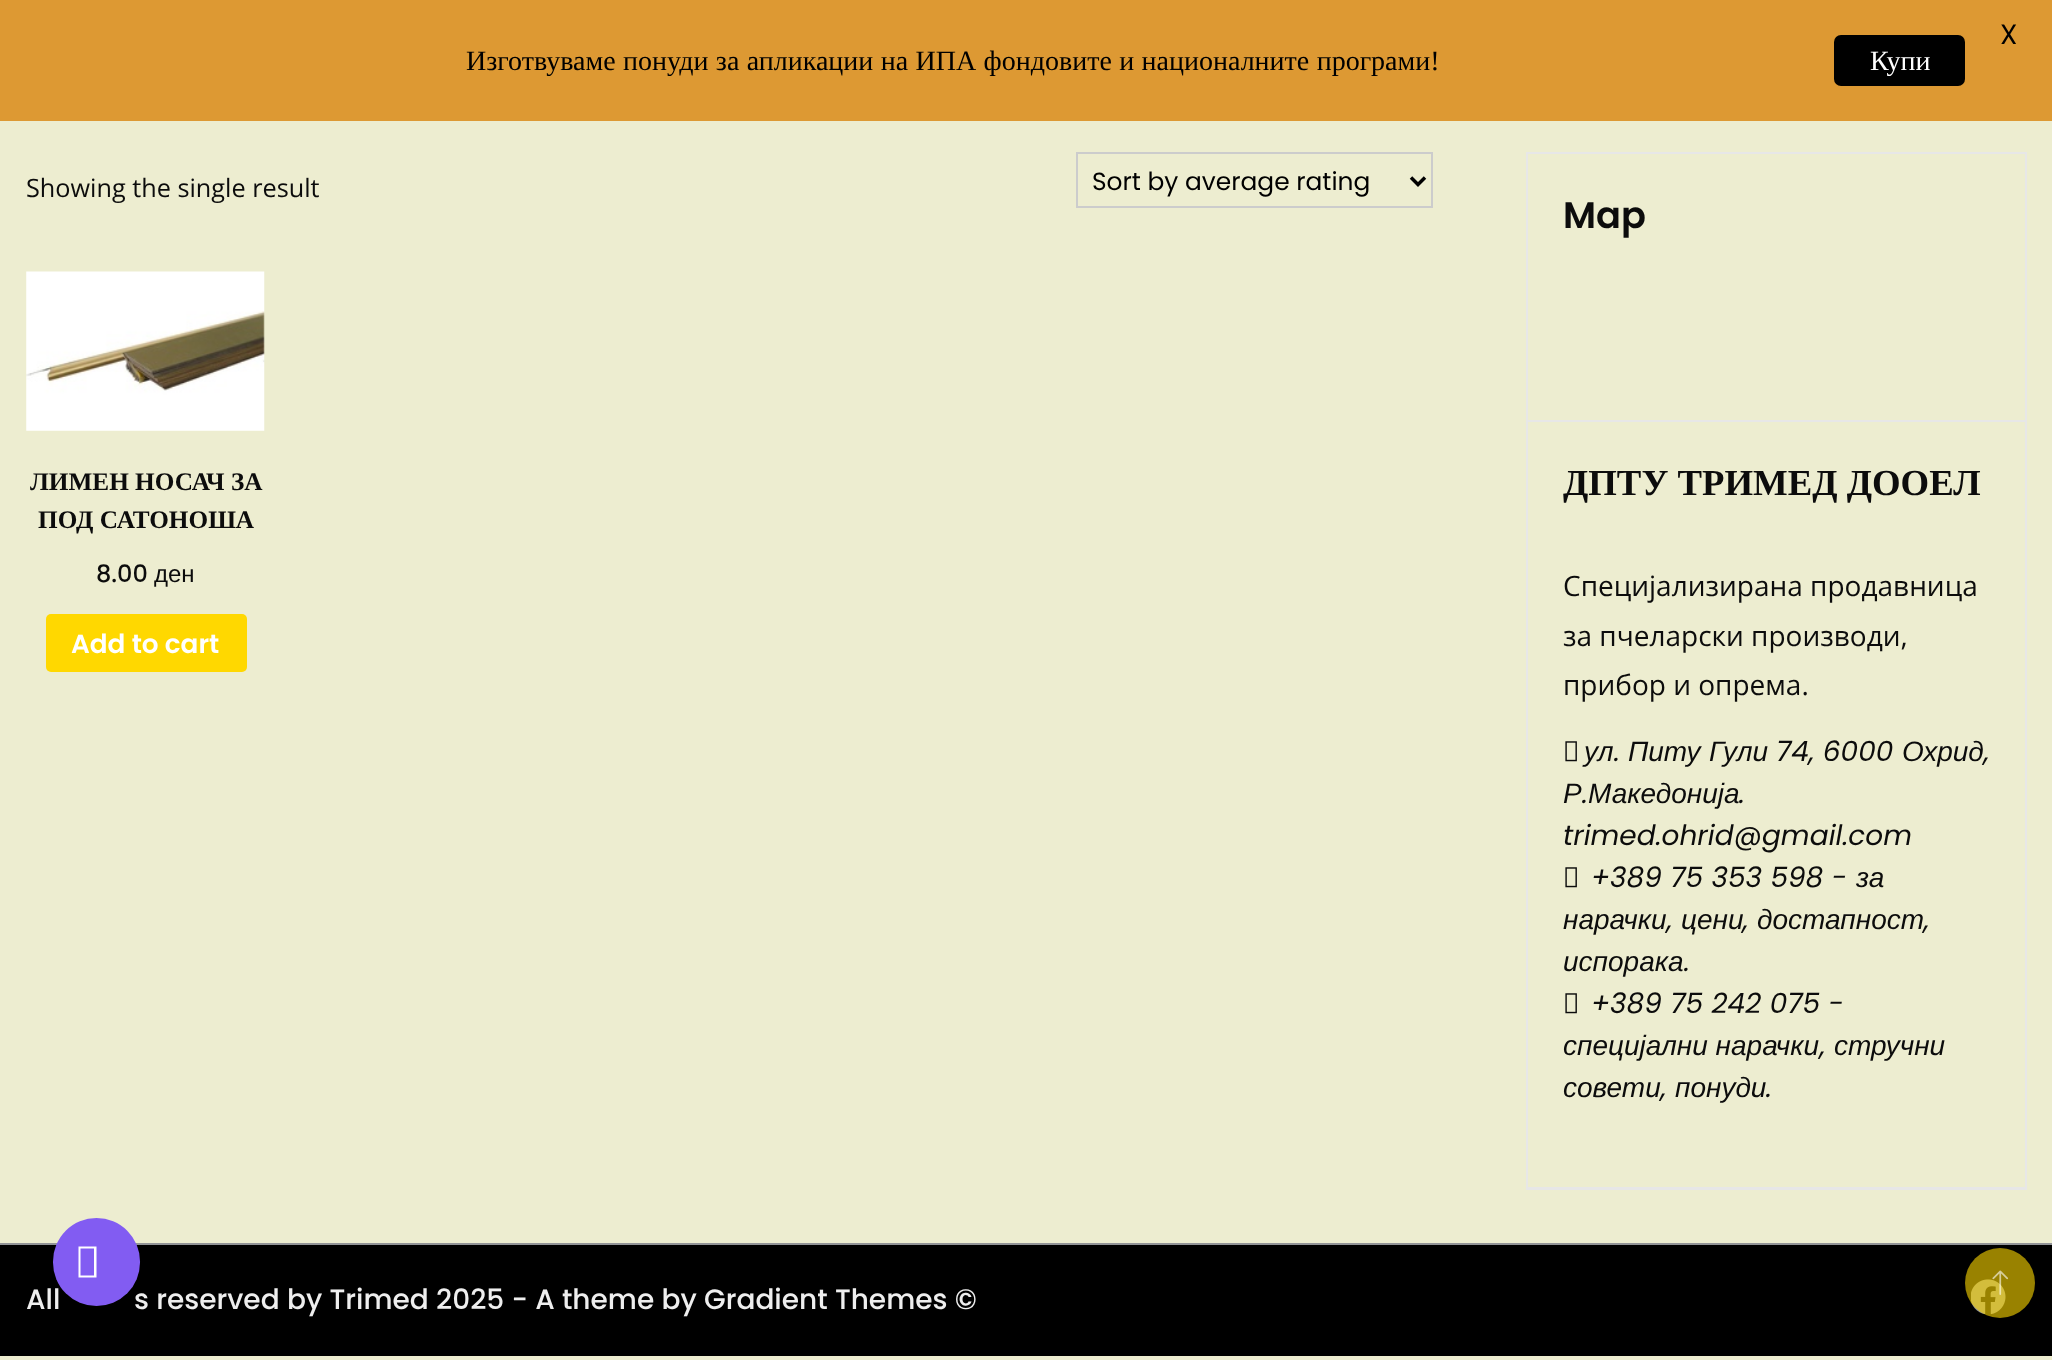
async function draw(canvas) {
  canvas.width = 2052
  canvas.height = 1360
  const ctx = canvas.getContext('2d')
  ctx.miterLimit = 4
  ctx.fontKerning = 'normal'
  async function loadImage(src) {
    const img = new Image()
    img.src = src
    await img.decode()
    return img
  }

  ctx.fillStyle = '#ededd0'
  ctx.fillRect(0, 0, 2052, 1360)
  ctx.fillStyle = '#d93'
  ctx.fillRect(0, 0, 2052, 121)
  ctx.font = '28px Poppins'
  ctx.fillStyle = '#000'
  ctx.fillText('X', 2000, 44)
  ctx.wordSpacing = '0.4px'
  ctx.font = '28px Liberation Serif'
  ctx.fillText('Изготвуваме понуди за апликации на ИПА фондовите и националните програми!', 466, 70)
  ctx.beginPath()
  ctx.roundRect(1834, 35, 131, 51, 7)
  ctx.fill()
  ctx.wordSpacing = '0px'
  ctx.fillStyle = '#fff'
  ctx.fillText('Купи', 1870, 70)
  ctx.font = '25.25px Open Sans'
  ctx.fillStyle = '#0c0c0c'
  ctx.fillText('Showing the single result', 26, 197)
  ctx.strokeStyle = '#ccc'
  ctx.lineWidth = 2
  ctx.strokeRect(1077, 153, 355, 54)
  ctx.beginPath()
  ctx.moveTo(1411, 177.5)
  ctx.lineTo(1418, 184.5)
  ctx.lineTo(1425, 177.5)
  ctx.strokeStyle = '#000'
  ctx.lineWidth = 3.5
  ctx.stroke()
  ctx.font = '24.9px Poppins'
  ctx.fillStyle = '#000'
  ctx.fillText('Sort by average rating', 1092, 190)
  ctx.drawImage(await loadImage('image0.png'), 26, 271, 239, 160)
  ctx.font = 'bold 25.25px Liberation Serif'
  ctx.fillStyle = '#0c0c0c'
  ctx.fillText('ЛИМЕН НОСАЧ ЗА', 30, 490)
  ctx.fillText('ПОД САТОНОША', 38, 528)
  ctx.font = '500 24px Poppins'
  ctx.fillText('8.00', 96, 582)
  ctx.font = '24px Liberation Sans'
  ctx.fillText('ден', 154, 582)
  ctx.fillStyle = '#ffd800'
  ctx.beginPath()
  ctx.roundRect(46, 614, 201, 58, 5)
  ctx.fill()
  ctx.font = '600 26.25px Poppins'
  ctx.fillStyle = '#fff'
  ctx.fillText('Add to cart', 71, 653)
  ctx.strokeStyle = '#e7e7e7'
  ctx.lineWidth = 2
  ctx.strokeRect(1527, 153, 499, 1036)
  ctx.fillStyle = '#e7e7e7'
  ctx.fillRect(1528, 420, 497, 2)
  ctx.font = '600 36.75px Poppins'
  ctx.fillStyle = '#0c0c0c'
  ctx.fillText('Map', 1563, 228)
  ctx.fillStyle = '#e7e7e7'
  ctx.fillRect(1528, 1187, 497, 1)
  ctx.font = 'bold 36.75px Liberation Serif'
  ctx.fillStyle = '#0c0c0c'
  ctx.fillText('ДПТУ ТРИМЕД ДООЕЛ', 1563, 495)
  ctx.font = '28px Open Sans'
  ctx.fillText('Специјализирана продавница', 1563, 596)
  ctx.fillText('за пчеларски производи,', 1563, 646)
  ctx.fillText('прибор и опрема.', 1563, 695)
  ctx.drawImage(await loadImage('image1.png'), 1565, 741, 12, 21)
  ctx.font = 'italic 28px Liberation Sans'
  ctx.fillText('ул', 1584, 761)
  ctx.font = 'italic 28px Poppins'
  ctx.fillText('.', 1614, 761)
  ctx.font = 'italic 28px Liberation Sans'
  ctx.fillText('Питу', 1628, 761)
  ctx.fillText('Гули', 1709, 761)
  ctx.font = 'italic 28px Poppins'
  ctx.fillText('74, 6000', 1776, 761)
  ctx.font = 'italic 28px Liberation Sans'
  ctx.fillText('Охрид', 1902, 761)
  ctx.font = 'italic 28px Poppins'
  ctx.fillText(',', 1984, 761)
  ctx.font = 'italic 28px Liberation Sans'
  ctx.fillText('Р', 1563, 803)
  ctx.font = 'italic 28px Poppins'
  ctx.fillText('.', 1582, 803)
  ctx.font = 'italic 28px Liberation Sans'
  ctx.fillText('Македонија', 1588, 803)
  ctx.font = 'italic 28px Poppins'
  ctx.fillText('.', 1739, 803)
  ctx.fillText('trimed.ohrid@gmail.com', 1563, 845)
  ctx.drawImage(await loadImage('image1.png'), 1565, 867, 12, 21)
  ctx.fillText('+389 75 353 598 -', 1591, 887)
  ctx.font = 'italic 28px Liberation Sans'
  ctx.fillText('за', 1856, 887)
  ctx.fillText('нарачки', 1563, 929)
  ctx.font = 'italic 28px Poppins'
  ctx.fillText(',', 1667, 929)
  ctx.font = 'italic 28px Liberation Sans'
  ctx.fillText('цени', 1681, 929)
  ctx.font = 'italic 28px Poppins'
  ctx.fillText(',', 1743, 929)
  ctx.font = 'italic 28px Liberation Sans'
  ctx.fillText('достапност', 1757, 929)
  ctx.font = 'italic 28px Poppins'
  ctx.fillText(',', 1924, 929)
  ctx.font = 'italic 28px Liberation Sans'
  ctx.fillText('испорака', 1563, 971)
  ctx.font = 'italic 28px Poppins'
  ctx.fillText('.', 1684, 971)
  ctx.drawImage(await loadImage('image1.png'), 1565, 993, 12, 21)
  ctx.fillText('+389 75 242 075 -', 1591, 1013)
  ctx.font = 'italic 28px Liberation Sans'
  ctx.fillText('специјални нарачки', 1563, 1055)
  ctx.font = 'italic 28px Poppins'
  ctx.fillText(',', 1820, 1055)
  ctx.font = 'italic 28px Liberation Sans'
  ctx.fillText('стручни', 1834, 1055)
  ctx.fillText('совети', 1563, 1097)
  ctx.font = 'italic 28px Poppins'
  ctx.fillText(',', 1661, 1097)
  ctx.font = 'italic 28px Liberation Sans'
  ctx.fillText('понуди', 1675, 1097)
  ctx.font = 'italic 28px Poppins'
  ctx.fillText('.', 1766, 1097)
  ctx.fillStyle = '#000'
  ctx.fillRect(0, 1245, 2052, 111)
  ctx.fillStyle = '#929497'
  ctx.fillRect(0, 1243, 2052, 2)
  ctx.font = '500 28px Poppins'
  ctx.fillStyle = '#eee'
  ctx.fillText('All', 26, 1309)
  ctx.fillText('s reserved by Trimed 2025 - A theme by Gradient Themes ©', 134, 1309)
  ctx.drawImage(await loadImage('image2.png'), 1971, 1279, 35, 35)
  ctx.fillStyle = '#825cf2'
  ctx.beginPath()
  ctx.roundRect(53, 1218, 87, 88, 43.5)
  ctx.fill()
  ctx.fillStyle = '#fff'
  ctx.beginPath()
  ctx.moveTo(78.5, 1277.5)
  ctx.lineTo(78.5, 1246.5)
  ctx.lineTo(96.5, 1246.5)
  ctx.lineTo(96.5, 1277.5)
  ctx.closePath()
  ctx.moveTo(80.5, 1275.5)
  ctx.lineTo(94, 1275.5)
  ctx.lineTo(94, 1248.5)
  ctx.lineTo(80.5, 1248.5)
  ctx.closePath()
  ctx.fill()
  ctx.fillStyle = '#ffd80099'
  ctx.beginPath()
  ctx.arc(2000, 1283, 35, 0, 2 * Math.PI)
  ctx.fill()
  ctx.drawImage(await loadImage('image3.png'), 1992, 1270, 17, 25)
}

draw(document.querySelector('canvas'))
